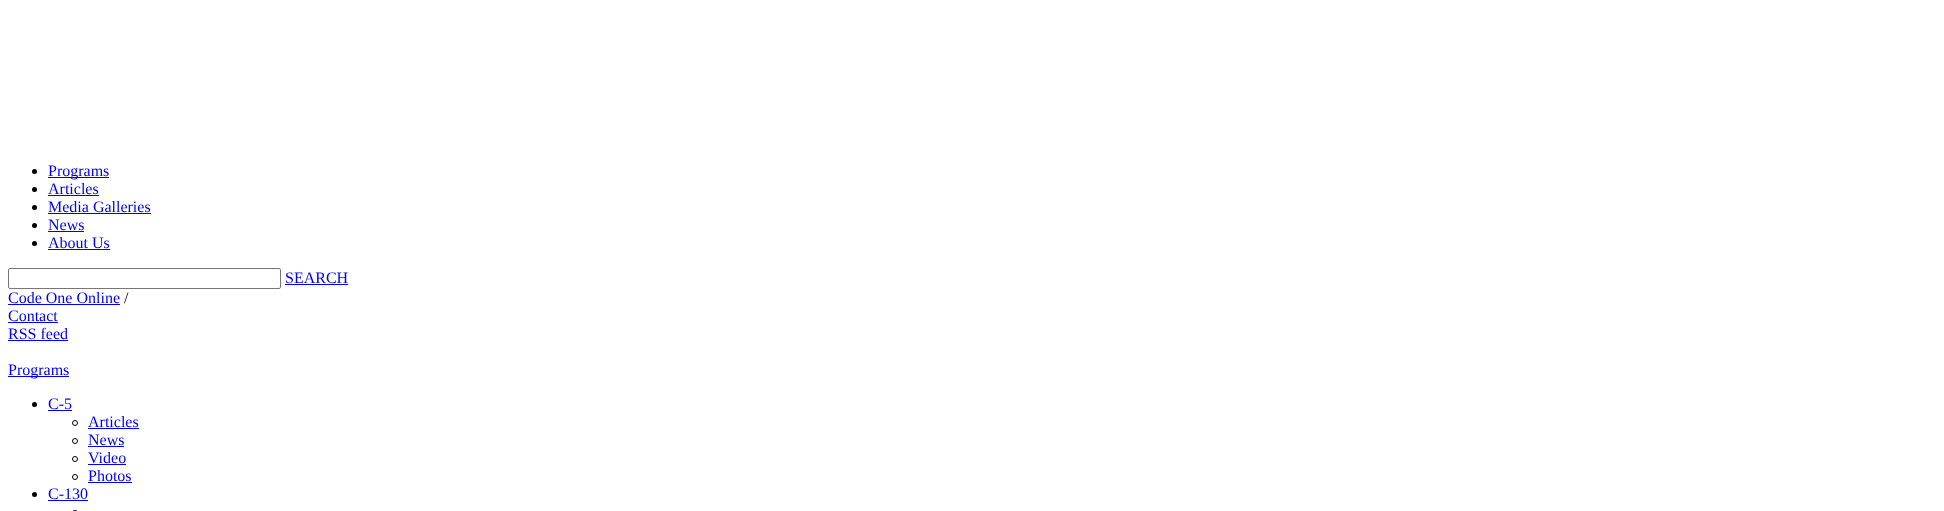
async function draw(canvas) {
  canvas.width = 1944
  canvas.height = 511
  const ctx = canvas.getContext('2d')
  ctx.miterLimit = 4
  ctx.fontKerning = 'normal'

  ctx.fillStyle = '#fff'
  ctx.fillRect(0, 0, 1944, 511)
  ctx.fillStyle = '#000'
  ctx.beginPath()
  ctx.arc(34.5, 171.5, 2.5, 0, 2 * Math.PI)
  ctx.fill()
  ctx.fillStyle = '#00e'
  ctx.fillRect(48, 177, 61, 1)
  ctx.font = '16px Liberation Serif'
  ctx.fillText('Programs', 48, 176)
  ctx.fillStyle = '#000'
  ctx.beginPath()
  ctx.arc(34.5, 189.5, 2.5, 0, 2 * Math.PI)
  ctx.fill()
  ctx.fillStyle = '#00e'
  ctx.fillText('Articles', 48, 194)
  ctx.fillRect(48, 195, 51, 1)
  ctx.fillStyle = '#000'
  ctx.beginPath()
  ctx.arc(34.5, 207.5, 2.5, 0, 2 * Math.PI)
  ctx.fill()
  ctx.fillStyle = '#00e'
  ctx.fillText('Media Galleries', 48, 212)
  ctx.fillRect(48, 213, 103, 1)
  ctx.fillStyle = '#000'
  ctx.beginPath()
  ctx.arc(34.5, 225.5, 2.5, 0, 2 * Math.PI)
  ctx.fill()
  ctx.fillStyle = '#00e'
  ctx.fillText('News', 48, 230)
  ctx.fillRect(48, 231, 36, 1)
  ctx.fillStyle = '#000'
  ctx.beginPath()
  ctx.arc(34.5, 243.5, 2.5, 0, 2 * Math.PI)
  ctx.fill()
  ctx.fillStyle = '#00e'
  ctx.fillText('About Us', 48, 248)
  ctx.fillRect(48, 249, 62, 1)
  ctx.beginPath()
  ctx.roundRect(8.5, 268.5, 272, 20, 1.5)
  ctx.strokeStyle = '#767676'
  ctx.stroke()
  ctx.fillText('SEARCH', 285, 283)
  ctx.fillRect(285, 284, 63, 1)
  ctx.fillText('Code One Online', 8, 303)
  ctx.fillRect(8, 304, 112, 1)
  ctx.fillStyle = '#000'
  ctx.fillText('/', 124, 303)
  ctx.fillStyle = '#00e'
  ctx.fillText('Contact', 8, 321)
  ctx.fillRect(8, 322, 50, 1)
  ctx.fillText('RSS feed', 8, 339)
  ctx.fillRect(8, 340, 60, 1)
  ctx.fillRect(8, 376, 61, 1)
  ctx.fillText('Programs', 8, 375)
  ctx.fillStyle = '#000'
  ctx.beginPath()
  ctx.arc(34.5, 404.5, 2.5, 0, 2 * Math.PI)
  ctx.fill()
  ctx.fillStyle = '#00e'
  ctx.fillText('C-5', 48, 409)
  ctx.fillRect(48, 410, 24, 1)
  ctx.beginPath()
  ctx.arc(75, 423, 2.5, 0, 2 * Math.PI)
  ctx.strokeStyle = '#000'
  ctx.stroke()
  ctx.fillText('Articles', 88, 427)
  ctx.fillRect(88, 428, 51, 1)
  ctx.beginPath()
  ctx.arc(75, 441, 2.5, 0, 2 * Math.PI)
  ctx.stroke()
  ctx.fillText('News', 88, 445)
  ctx.fillRect(88, 446, 36, 1)
  ctx.beginPath()
  ctx.arc(75, 459, 2.5, 0, 2 * Math.PI)
  ctx.stroke()
  ctx.fillText('Video', 88, 463)
  ctx.fillRect(88, 464, 38, 1)
  ctx.beginPath()
  ctx.arc(75, 477, 2.5, 0, 2 * Math.PI)
  ctx.stroke()
  ctx.fillText('Photos', 88, 481)
  ctx.fillRect(88, 482, 44, 1)
  ctx.fillStyle = '#000'
  ctx.beginPath()
  ctx.arc(34.5, 494.5, 2.5, 0, 2 * Math.PI)
  ctx.fill()
  ctx.fillStyle = '#00e'
  ctx.fillText('C-130', 48, 499)
  ctx.fillRect(48, 500, 40, 1)
  ctx.beginPath()
  ctx.roundRect(72.5, 510.5, 5, 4, 2.5)
  ctx.stroke()
}

draw(document.querySelector('canvas'))
